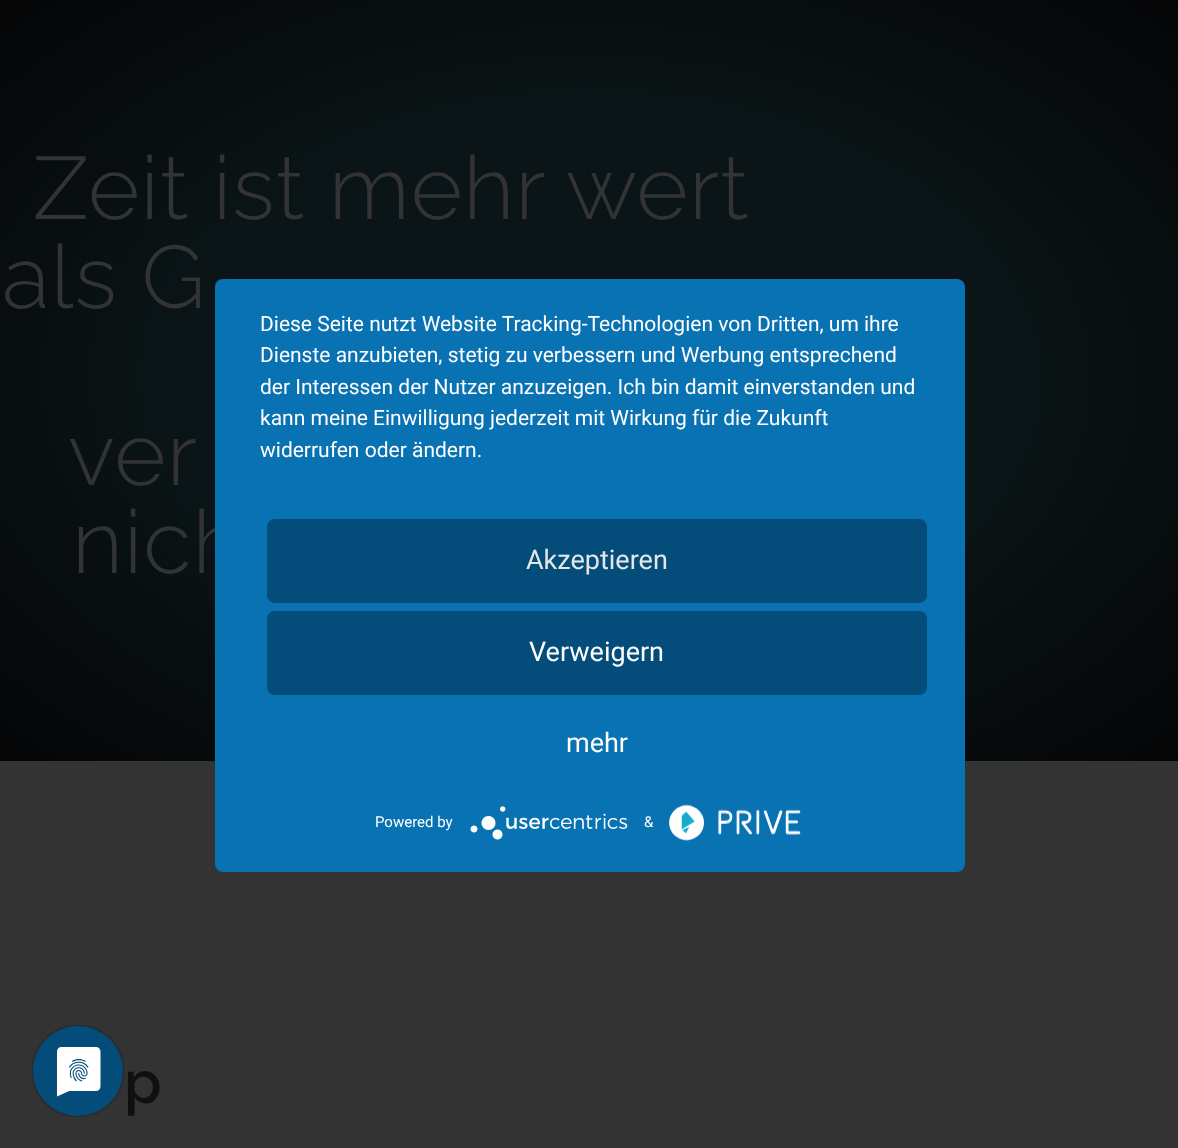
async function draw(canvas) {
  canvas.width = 1178
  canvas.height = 1148
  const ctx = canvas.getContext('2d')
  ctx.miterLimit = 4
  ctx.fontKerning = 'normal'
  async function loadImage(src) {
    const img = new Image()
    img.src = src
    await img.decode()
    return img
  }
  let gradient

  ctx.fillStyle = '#333'
  ctx.fillRect(0, 0, 1178, 1148)
  gradient = ctx.createRadialGradient(590, 589.07, 0, 590, 589.07, 834)
  gradient.addColorStop(0.48, '#0b1517')
  gradient.addColorStop(1, '#050506')
  ctx.fillStyle = gradient
  ctx.beginPath()
  ctx.rect(0, 0, 1178, 761)
  ctx.save()
  ctx.clip()
  ctx.scale(1, 538 / 834)
  ctx.fillRect(0, 0, 1178, 1780)
  ctx.restore()
  ctx.letterSpacing = '1px'
  ctx.font = '300 88.5px Raleway'
  ctx.fillStyle = '#333'
  ctx.fillText('Zeit ist mehr wert', 33, 219)
  ctx.fillText('als G', 2, 308)
  ctx.fillText('ver', 68, 485)
  ctx.fillText('nich', 72, 573)
  ctx.letterSpacing = '0px'
  ctx.font = '600 60px Raleway'
  ctx.fillStyle = '#0e1011'
  ctx.fillText('p', 124, 1103)
  ctx.save()
  ctx.beginPath()
  ctx.roundRect(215, 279, 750, 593, 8)
  ctx.clip()
  ctx.fillStyle = '#0000004d'
  ctx.filter = 'blur(27px)'
  ctx.beginPath()
  ctx.rect(215, 288, 750, 593)
  ctx.fill()
  ctx.filter = 'none'
  ctx.restore()
  ctx.fillStyle = '#0972b3'
  ctx.beginPath()
  ctx.roundRect(215, 279, 750, 593, 8)
  ctx.fill()
  ctx.font = '21px Roboto'
  ctx.fillStyle = '#fff'
  ctx.fillText('Diese Seite nutzt Website Tracking-Technologien von Dritten, um ihre', 260, 331)
  ctx.fillText('Dienste anzubieten, stetig zu verbessern und Werbung entsprechend', 260, 362)
  ctx.fillText('der Interessen der Nutzer anzuzeigen. Ich bin damit einverstanden und', 260, 394)
  ctx.fillText('kann meine Einwilligung jederzeit mit Wirkung für die Zukunft', 260, 425)
  ctx.fillText('widerrufen oder ändern.', 260, 457)
  ctx.fillStyle = '#044d7a'
  ctx.beginPath()
  ctx.roundRect(267, 519, 660, 84, 8)
  ctx.fill()
  ctx.font = '27px Roboto'
  ctx.fillStyle = '#e6e6e6'
  ctx.fillText('Akzeptieren', 526, 569)
  ctx.fillStyle = '#044d7a'
  ctx.beginPath()
  ctx.roundRect(267, 611, 660, 84, 8)
  ctx.fill()
  ctx.fillStyle = '#fff'
  ctx.fillText('Verweigern', 529, 661)
  ctx.fillText('mehr', 566, 752)
  ctx.font = '15px Roboto'
  ctx.fillText('Powered by', 375, 827)
  ctx.drawImage(await loadImage('image0.png'), 470, 806, 158, 34)
  ctx.fillText('&', 644, 827)
  ctx.drawImage(await loadImage('image1.png'), 669, 804, 132, 37)
  ctx.drawImage(await loadImage('image2.png'), 32, 1025, 92, 92)
}

draw(document.querySelector('canvas'))
